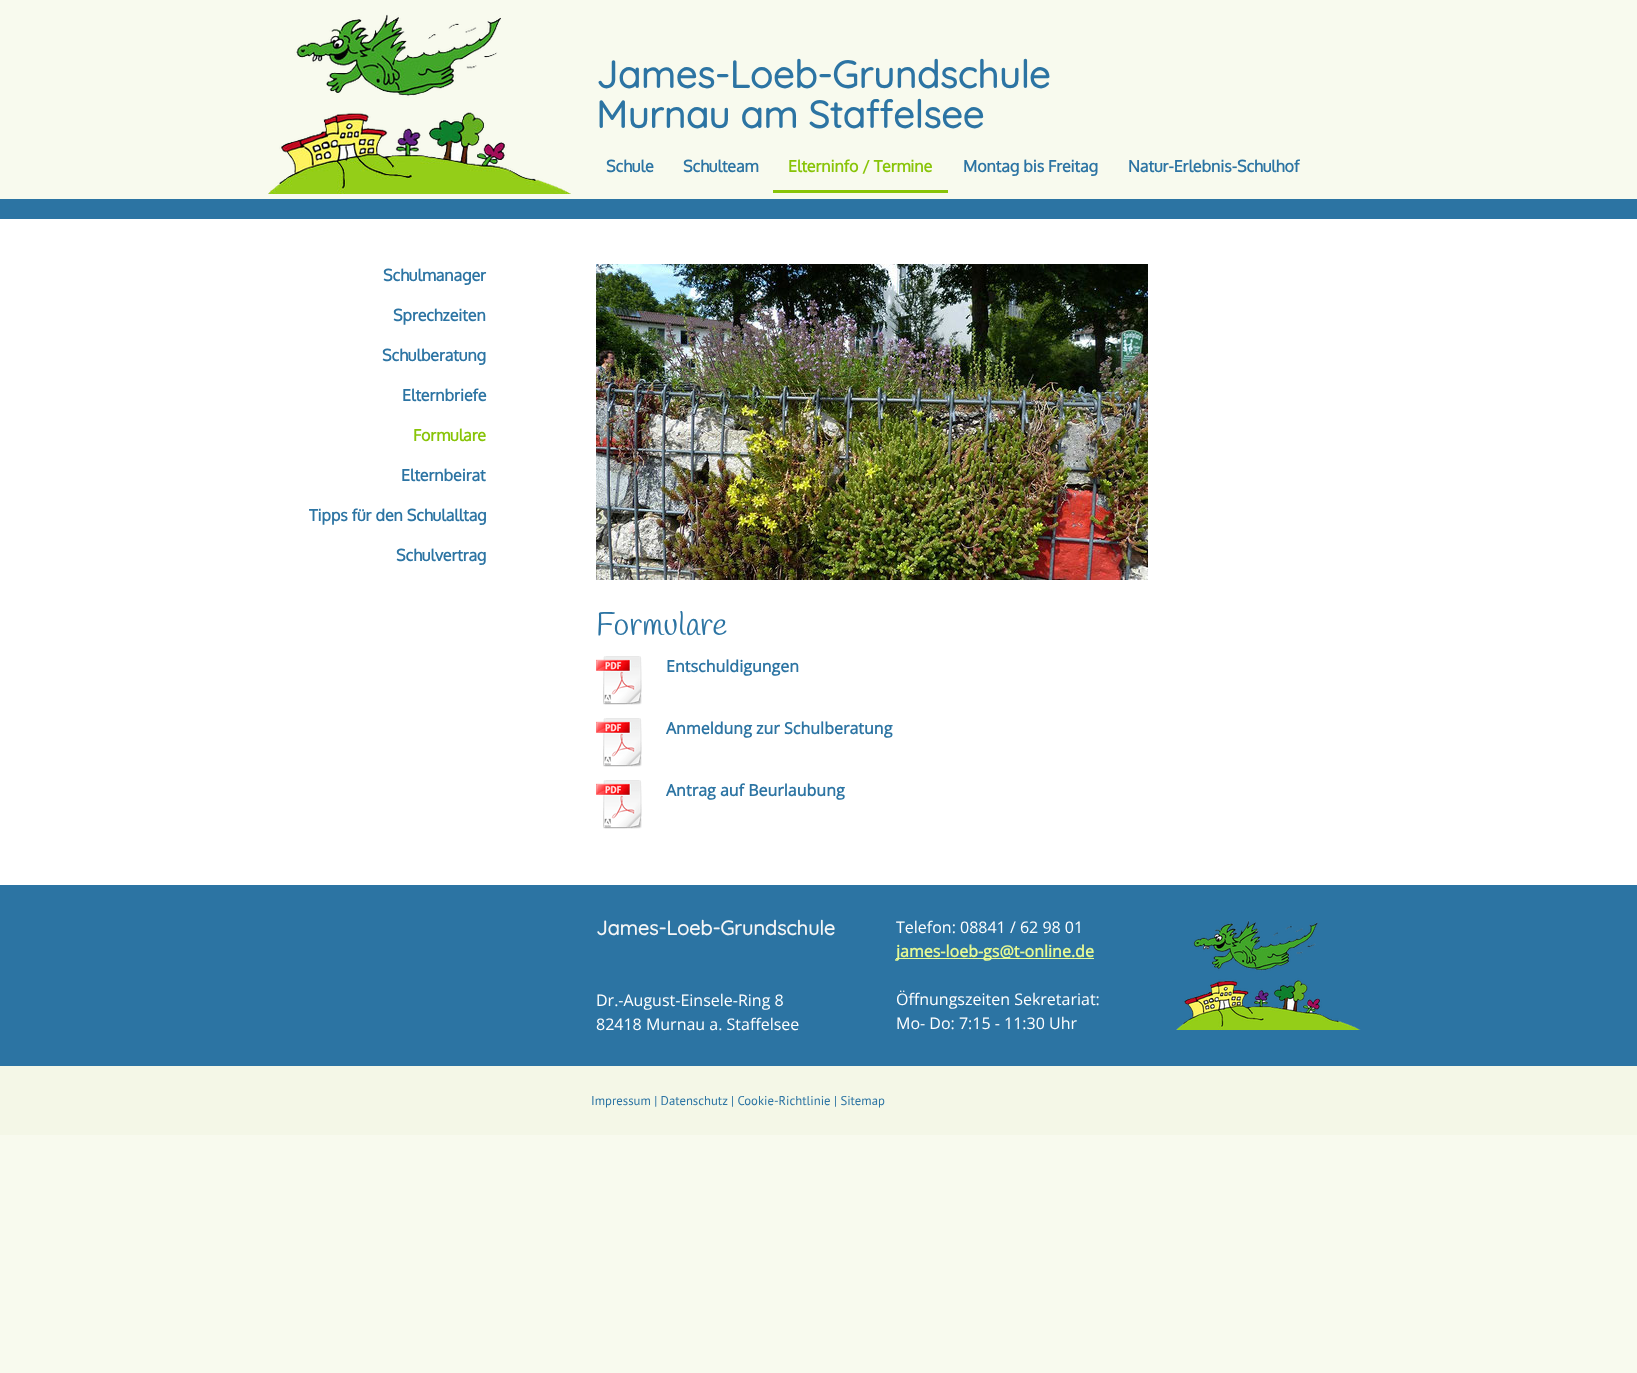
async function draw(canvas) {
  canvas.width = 1637
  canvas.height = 1373
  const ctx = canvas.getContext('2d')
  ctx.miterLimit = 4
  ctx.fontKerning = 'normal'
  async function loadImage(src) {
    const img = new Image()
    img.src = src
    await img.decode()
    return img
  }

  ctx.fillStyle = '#f8faee'
  ctx.fillRect(0, 0, 1637, 1373)
  ctx.fillStyle = '#2c74a3'
  ctx.fillRect(0, 199, 1637, 20)
  ctx.drawImage(await loadImage('image0.png'), 268, 14, 303, 180)
  ctx.font = 'bold 38px Quicksand'
  ctx.fillText('James-Loeb-Grundschule', 596, 88)
  ctx.fillText('Murnau am Staffelsee', 596, 128)
  ctx.font = 'bold 16px Oxygen'
  ctx.fillText('Schule', 606, 172)
  ctx.fillText('Schulteam', 683, 172)
  ctx.fillStyle = '#88c408'
  ctx.fillRect(773, 190, 175, 3)
  ctx.fillText('Elterninfo / Termine', 788, 172)
  ctx.fillStyle = '#2c74a3'
  ctx.fillText('Montag bis Freitag', 963, 172)
  ctx.fillText('Natur-Erlebnis-Schulhof', 1128, 172)
  ctx.fillStyle = '#fff'
  ctx.fillRect(0, 219, 1637, 666)
  ctx.fillStyle = '#2c74a3'
  ctx.fillText('Schulmanager', 383, 281)
  ctx.fillText('Sprechzeiten', 393, 321)
  ctx.fillText('Schulberatung', 382, 361)
  ctx.fillText('Elternbriefe', 402, 401)
  ctx.fillStyle = '#88c408'
  ctx.fillText('Formulare', 413, 441)
  ctx.fillStyle = '#2c74a3'
  ctx.fillText('Elternbeirat', 401, 481)
  ctx.fillText('Tipps für den Schulalltag', 309, 521)
  ctx.fillText('Schulvertrag', 396, 561)
  ctx.drawImage(await loadImage('image1.png'), 596, 264, 552, 316)
  ctx.font = '32px Handlee'
  ctx.fillText('Formulare', 596, 635)
  ctx.drawImage(await loadImage('image2.png'), 596, 656, 46, 49)
  ctx.font = 'bold 16px Open Sans'
  ctx.fillText('Entschuldigungen', 666, 672)
  ctx.drawImage(await loadImage('image2.png'), 596, 718, 46, 49)
  ctx.fillText('Anmeldung zur Schulberatung', 666, 734)
  ctx.drawImage(await loadImage('image2.png'), 596, 780, 46, 49)
  ctx.fillText('Antrag auf Beurlaubung', 666, 796)
  ctx.fillRect(0, 885, 1637, 181)
  ctx.font = 'bold 20px Quicksand'
  ctx.fillStyle = '#f6f6f6'
  ctx.fillText('James-Loeb-Grundschule', 596, 935)
  ctx.font = '16px Open Sans'
  ctx.fillStyle = '#fff'
  ctx.fillText('Dr.-August-Einsele-Ring 8', 596, 1006)
  ctx.fillText('82418 Murnau a. Staffelsee', 596, 1030)
  ctx.fillText('Telefon: 08841 / 62 98 01', 896, 933)
  ctx.fillStyle = '#e7fa93'
  ctx.fillRect(896, 958, 198, 1)
  ctx.font = 'bold 16px Open Sans'
  ctx.fillText('james-loeb-gs@t-online.de', 896, 957)
  ctx.font = '16px Open Sans'
  ctx.fillStyle = '#fff'
  ctx.fillText('Öffnungszeiten Sekretariat:', 896, 1005)
  ctx.fillText('Mo- Do: 7:15 - 11:30 Uhr', 896, 1029)
  ctx.drawImage(await loadImage('image3.png'), 1176, 920, 185, 110)
  ctx.fillStyle = '#f4f7e7'
  ctx.fillRect(0, 1066, 1637, 69)
  ctx.font = '12.75px PT Sans'
  ctx.fillStyle = '#2c74a3'
  ctx.fillText('Impressum | Datenschutz', 591, 1105)
  ctx.fillText('| Cookie-Richtlinie | Sitemap', 731, 1105)
}

draw(document.querySelector('canvas'))
